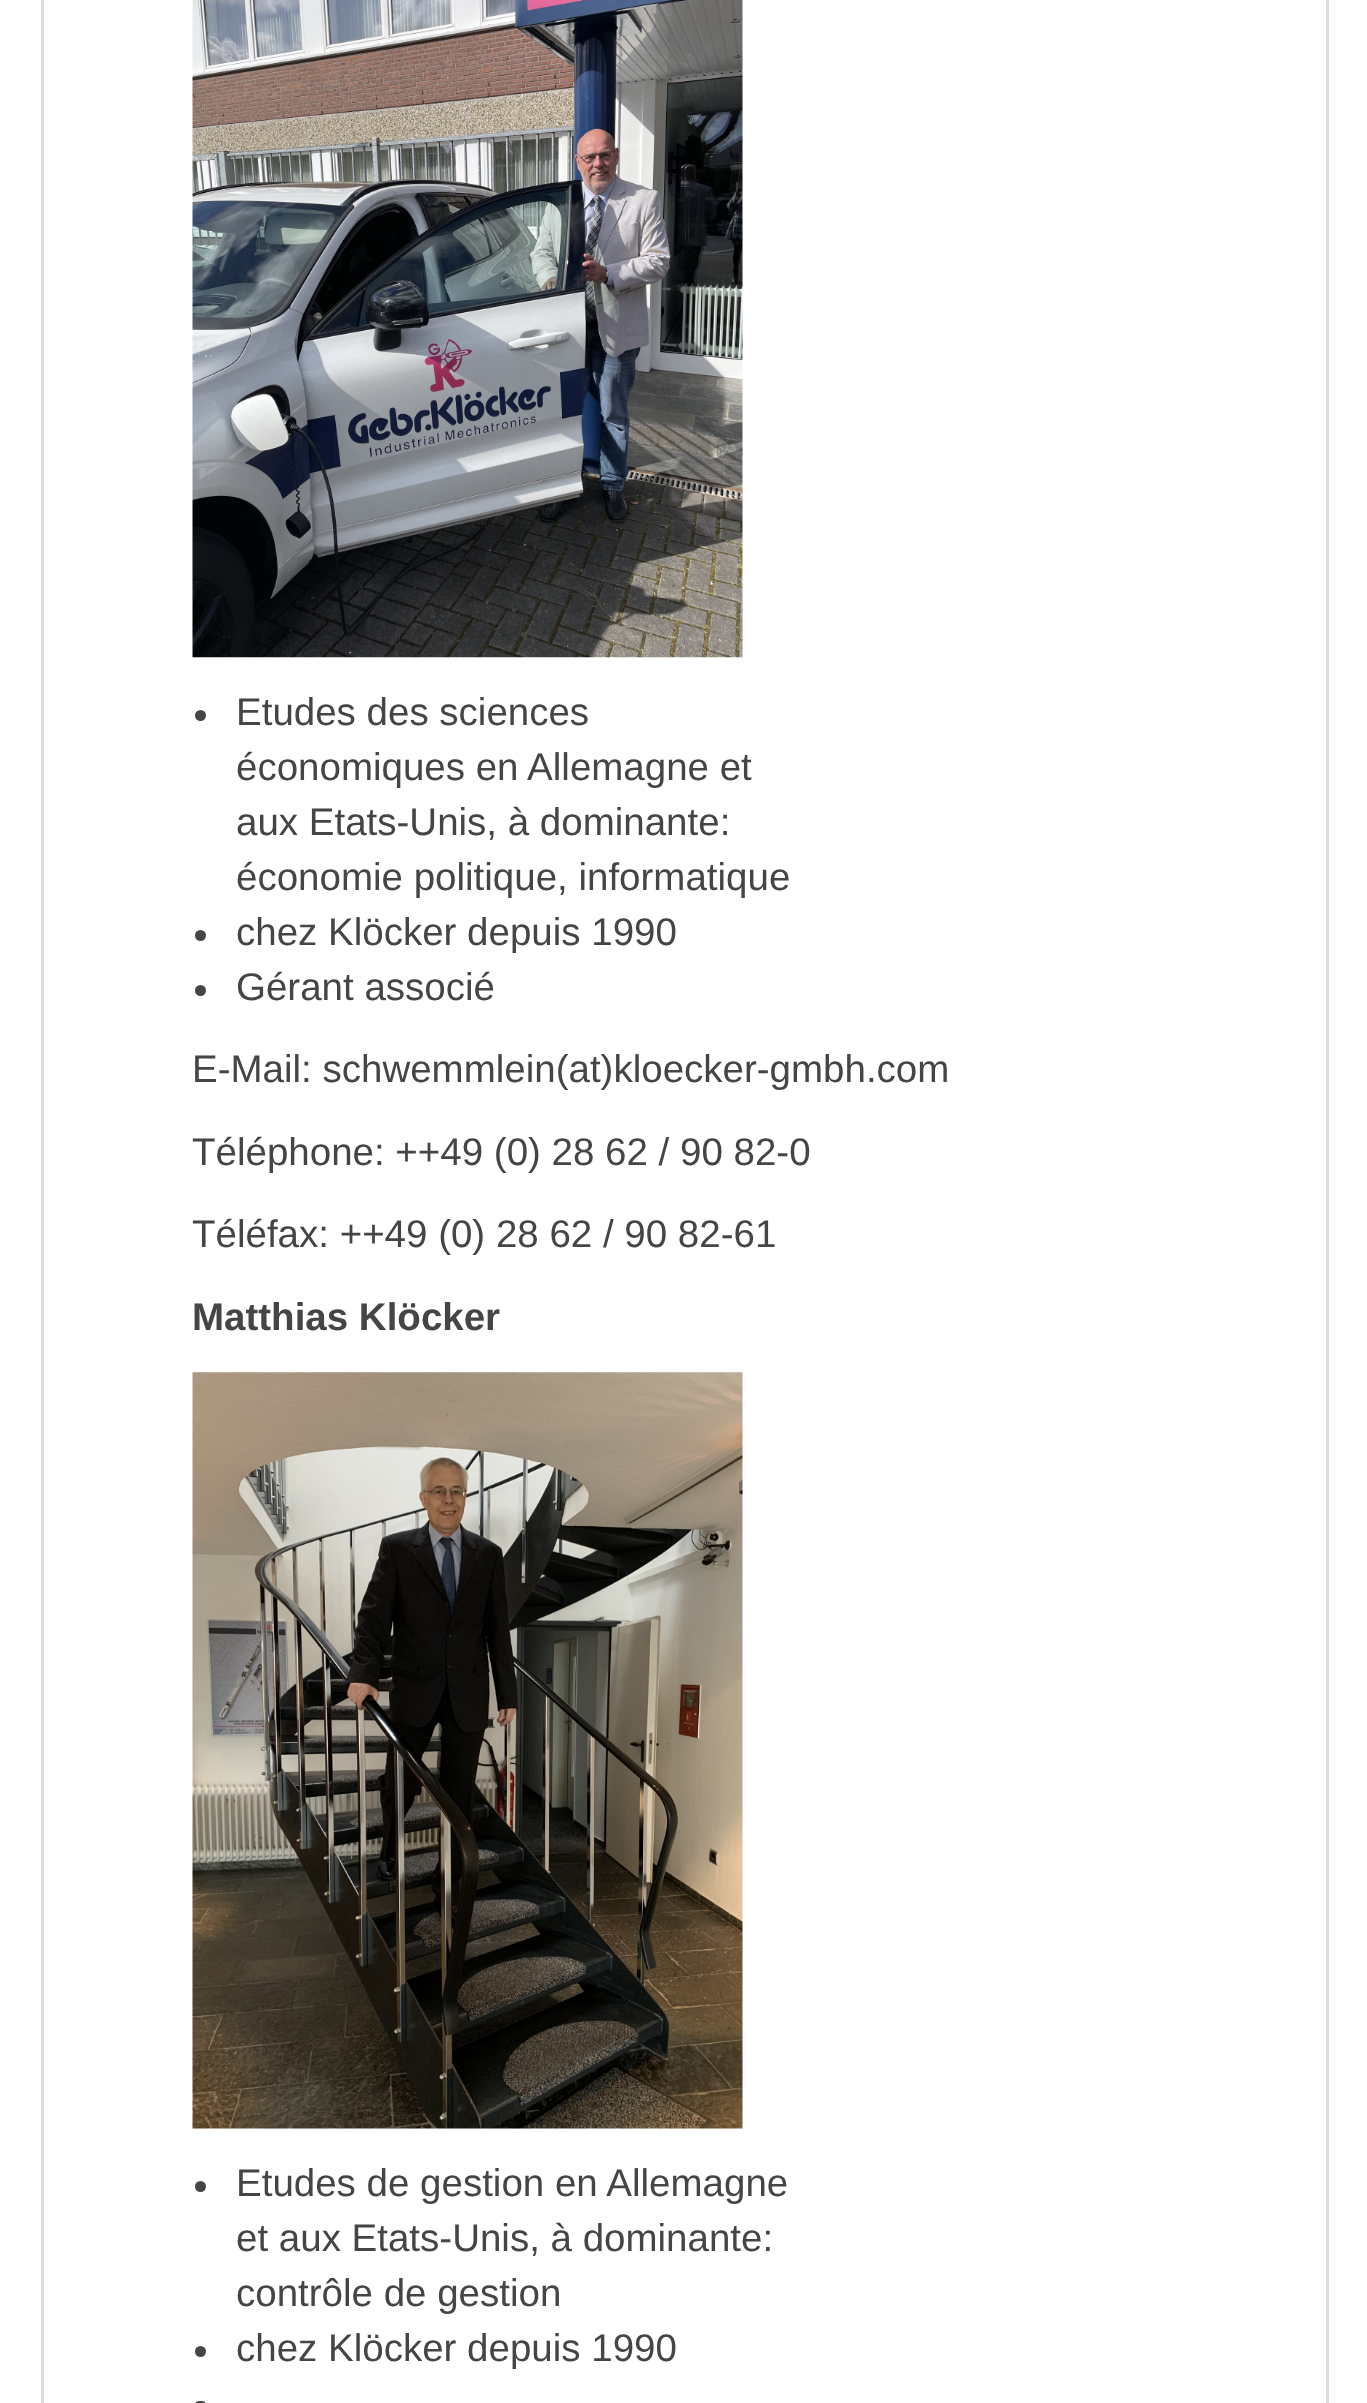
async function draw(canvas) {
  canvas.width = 1367
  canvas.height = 2403
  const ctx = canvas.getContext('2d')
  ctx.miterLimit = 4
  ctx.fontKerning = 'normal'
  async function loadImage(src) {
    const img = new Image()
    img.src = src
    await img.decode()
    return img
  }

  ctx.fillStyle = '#fff'
  ctx.fillRect(0, 0, 1367, 2403)
  ctx.fillStyle = '#ddd'
  ctx.fillRect(1326, 0, 3, 2403)
  ctx.fillRect(41, 0, 3, 2403)
  ctx.drawImage(await loadImage('image0.png'), 192, 0, 551, 658)
  ctx.fillStyle = '#454545'
  ctx.beginPath()
  ctx.arc(200.5, 715.5, 5.5, 0, 2 * Math.PI)
  ctx.fill()
  ctx.font = '38.5px Liberation Sans'
  ctx.fillText('Etudes des sciences', 236, 725)
  ctx.fillText('économiques en Allemagne et', 236, 780)
  ctx.fillText('aux Etats-Unis, à dominante:', 236, 835)
  ctx.fillText('économie politique, informatique', 236, 890)
  ctx.beginPath()
  ctx.arc(200.5, 935.5, 5.5, 0, 2 * Math.PI)
  ctx.fill()
  ctx.fillText('chez Klöcker depuis 1990', 236, 945)
  ctx.beginPath()
  ctx.arc(200.5, 990.5, 5.5, 0, 2 * Math.PI)
  ctx.fill()
  ctx.fillText('Gérant associé', 236, 1000)
  ctx.fillText('E-Mail: schwemmlein(at)kloecker-gmbh.com', 192, 1082)
  ctx.fillText('Téléphone: ++49 (0) 28 62 / 90 82-0', 192, 1165)
  ctx.fillText('Téléfax: ++49 (0) 28 62 / 90 82-61', 192, 1247)
  ctx.font = 'bold 38.5px Liberation Sans'
  ctx.fillText('Matthias Klöcker', 192, 1330)
  ctx.drawImage(await loadImage('image1.png'), 192, 1372, 551, 757)
  ctx.beginPath()
  ctx.arc(200.5, 2186.5, 5.5, 0, 2 * Math.PI)
  ctx.fill()
  ctx.font = '38.5px Liberation Sans'
  ctx.fillText('Etudes de gestion en Allemagne', 236, 2196)
  ctx.fillText('et aux Etats-Unis, à dominante:', 236, 2251)
  ctx.fillText('contrôle de gestion', 236, 2306)
  ctx.beginPath()
  ctx.arc(200.5, 2351.5, 5.5, 0, 2 * Math.PI)
  ctx.fill()
  ctx.fillText('chez Klöcker depuis 1990', 236, 2361)
  ctx.beginPath()
  ctx.roundRect(195, 2401, 11, 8, 5.5)
  ctx.fill()
}

draw(document.querySelector('canvas'))
